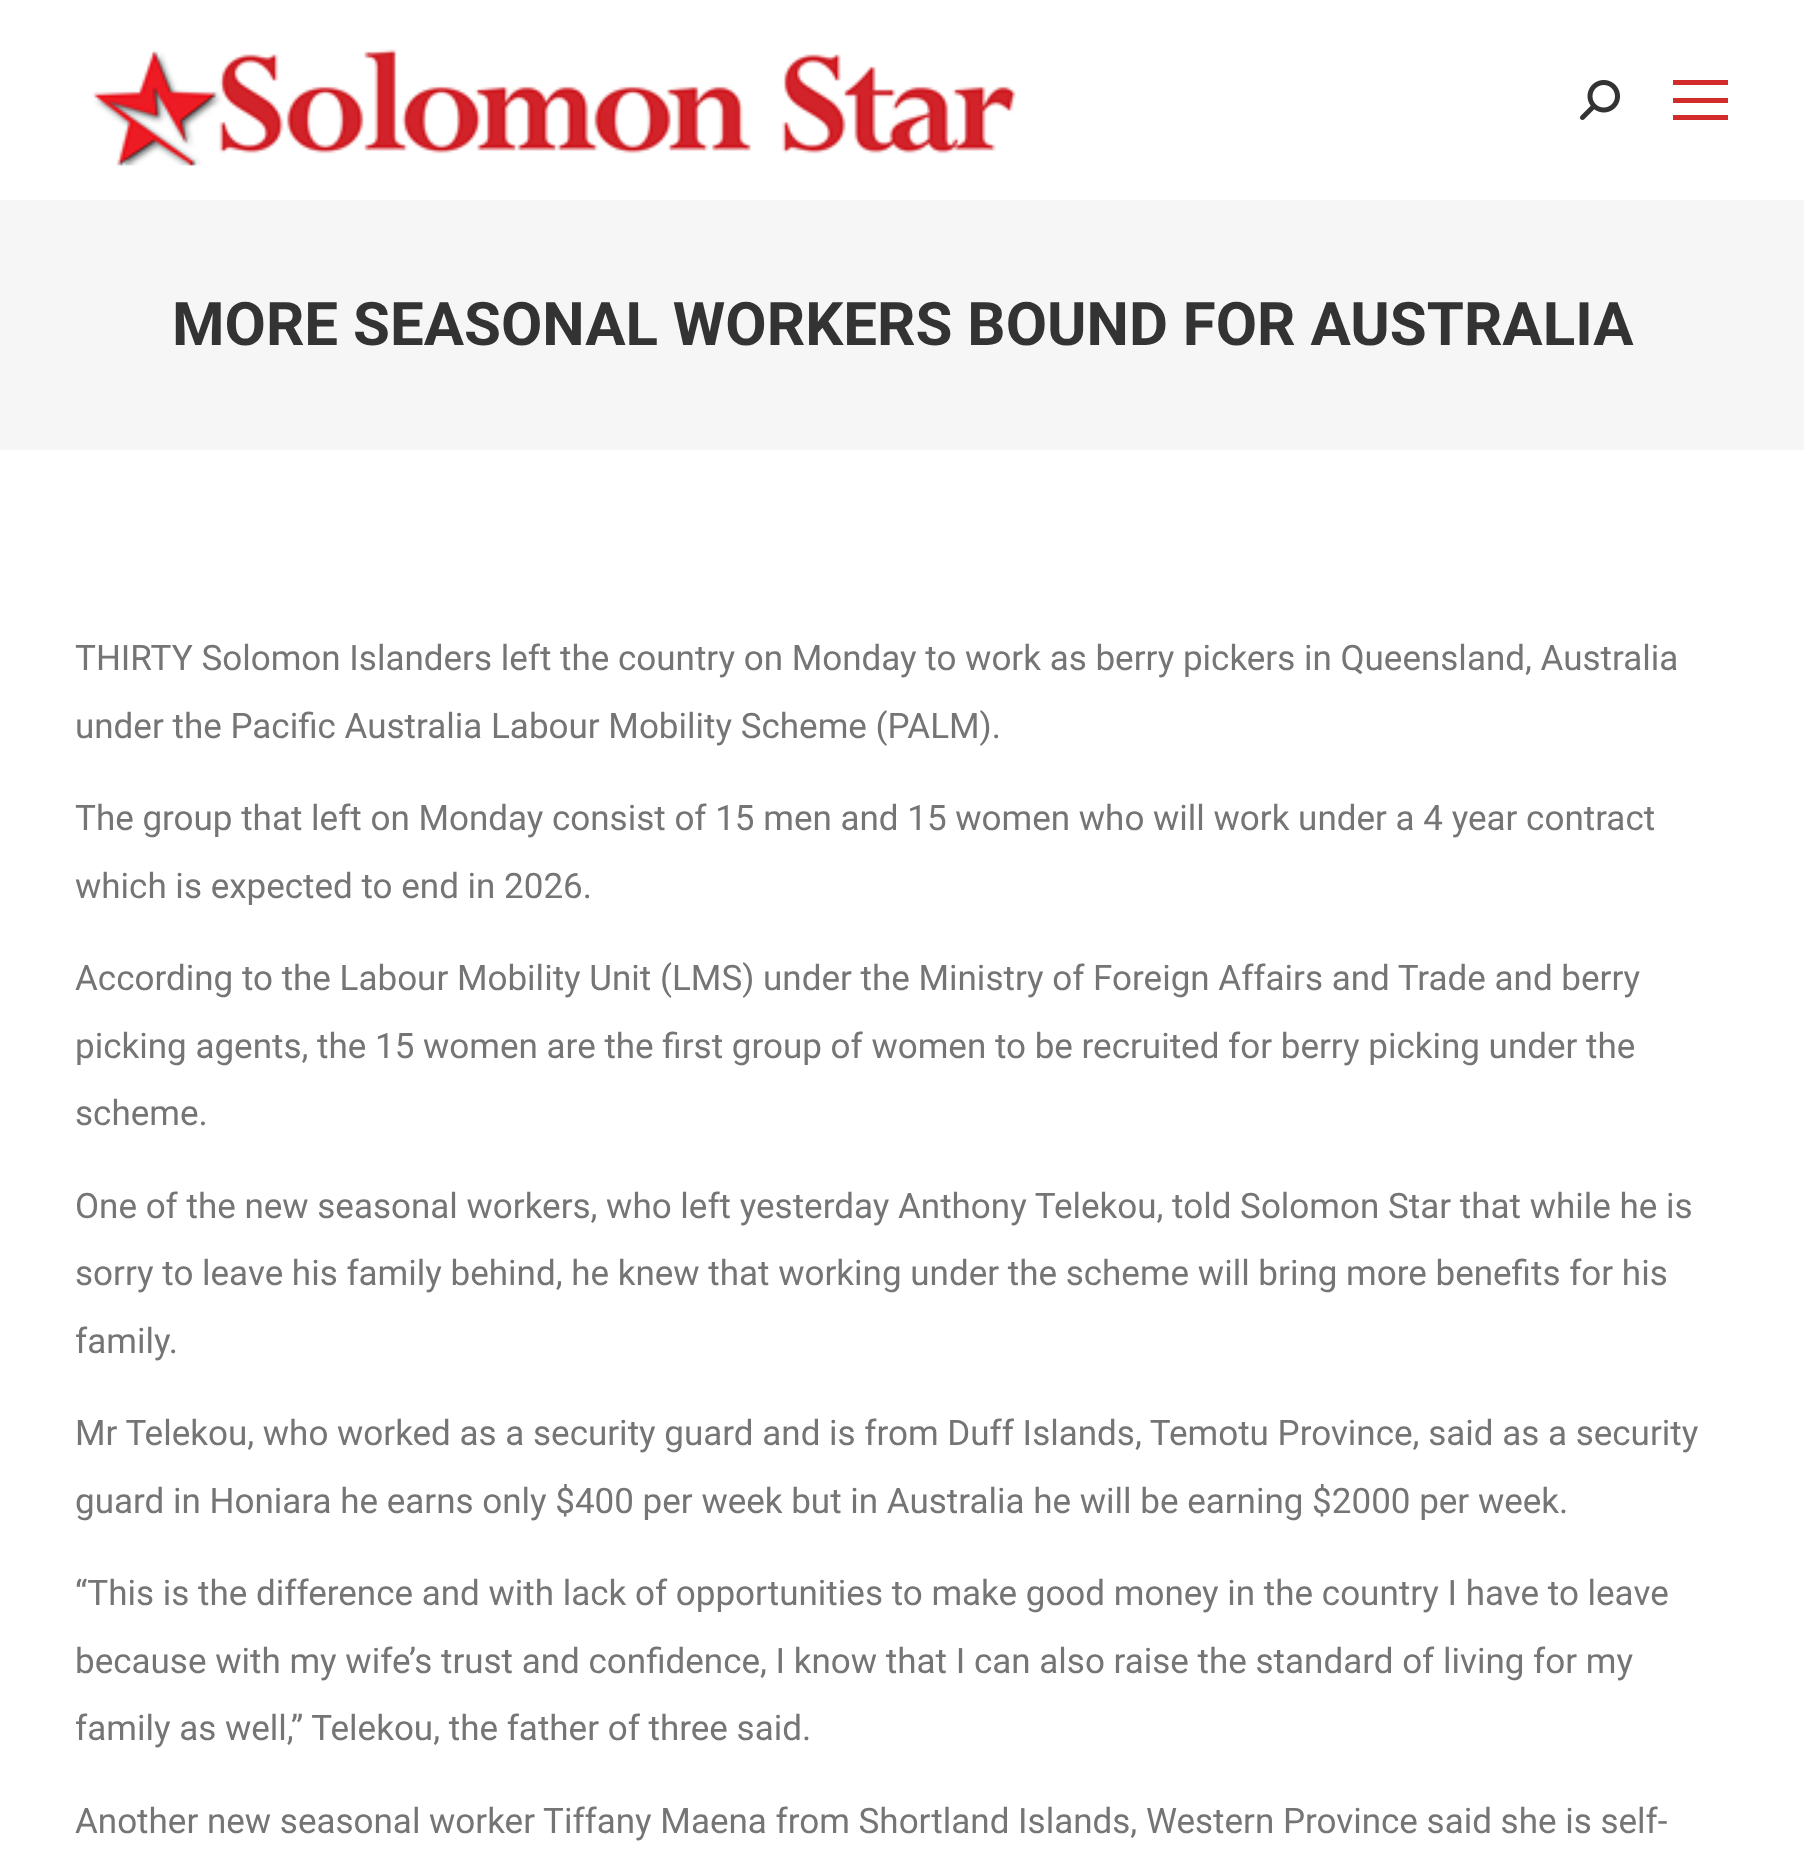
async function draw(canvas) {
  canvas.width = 1804
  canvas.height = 1855
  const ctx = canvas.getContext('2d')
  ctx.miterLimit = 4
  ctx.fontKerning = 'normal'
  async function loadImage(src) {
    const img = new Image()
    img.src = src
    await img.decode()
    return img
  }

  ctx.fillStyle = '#fff'
  ctx.fillRect(0, 0, 1804, 1855)
  ctx.drawImage(await loadImage('image0.png'), 92, 49, 924, 117)
  ctx.drawImage(await loadImage('image1.png'), 1580, 80, 40, 40)
  ctx.fillStyle = '#d22b2b'
  ctx.fillRect(1673, 80, 55, 5)
  ctx.fillRect(1673, 98, 55, 5)
  ctx.fillRect(1673, 115, 55, 5)
  ctx.fillStyle = '#f6f6f6'
  ctx.fillRect(0, 200, 1804, 250)
  ctx.font = 'bold 60px Roboto'
  ctx.fillStyle = '#333'
  ctx.fillText('MORE SEASONAL WORKERS BOUND FOR AUSTRALIA', 172, 345)
  ctx.font = '35px Roboto'
  ctx.fillStyle = '#757575'
  ctx.fillText('THIRTY Solomon Islanders left the country on Monday to work as berry pickers in Queensland, Australia', 75, 670)
  ctx.fillText('under the Pacific Australia Labour Mobility Scheme (PALM).', 75, 738)
  ctx.fillText('The group that left on Monday consist of 15 men and 15 women who will work under a 4 year contract', 75, 830)
  ctx.fillText('which is expected to end in 2026.', 75, 898)
  ctx.fillText('According to the Labour Mobility Unit (LMS) under the Ministry of Foreign Affairs and Trade and berry', 75, 990)
  ctx.fillText('picking agents, the 15 women are the first group of women to be recruited for berry picking under the', 75, 1058)
  ctx.fillText('scheme.', 75, 1125)
  ctx.fillText('One of the new seasonal workers, who left yesterday Anthony Telekou, told Solomon Star that while he is', 75, 1218)
  ctx.fillText('sorry to leave his family behind, he knew that working under the scheme will bring more benefits for his', 75, 1285)
  ctx.fillText('family.', 75, 1353)
  ctx.fillText('Mr Telekou, who worked as a security guard and is from Duff Islands, Temotu Province, said as a security', 75, 1445)
  ctx.fillText('guard in Honiara he earns only $400 per week but in Australia he will be earning $2000 per week.', 75, 1513)
  ctx.fillText('“This is the difference and with lack of opportunities to make good money in the country I have to leave', 75, 1605)
  ctx.fillText('because with my wife’s trust and confidence, I know that I can also raise the standard of living for my', 75, 1673)
  ctx.fillText('family as well,” Telekou, the father of three said.', 75, 1740)
  ctx.fillText('Another new seasonal worker Tiffany Maena from Shortland Islands, Western Province said she is self-', 75, 1833)
}

draw(document.querySelector('canvas'))
